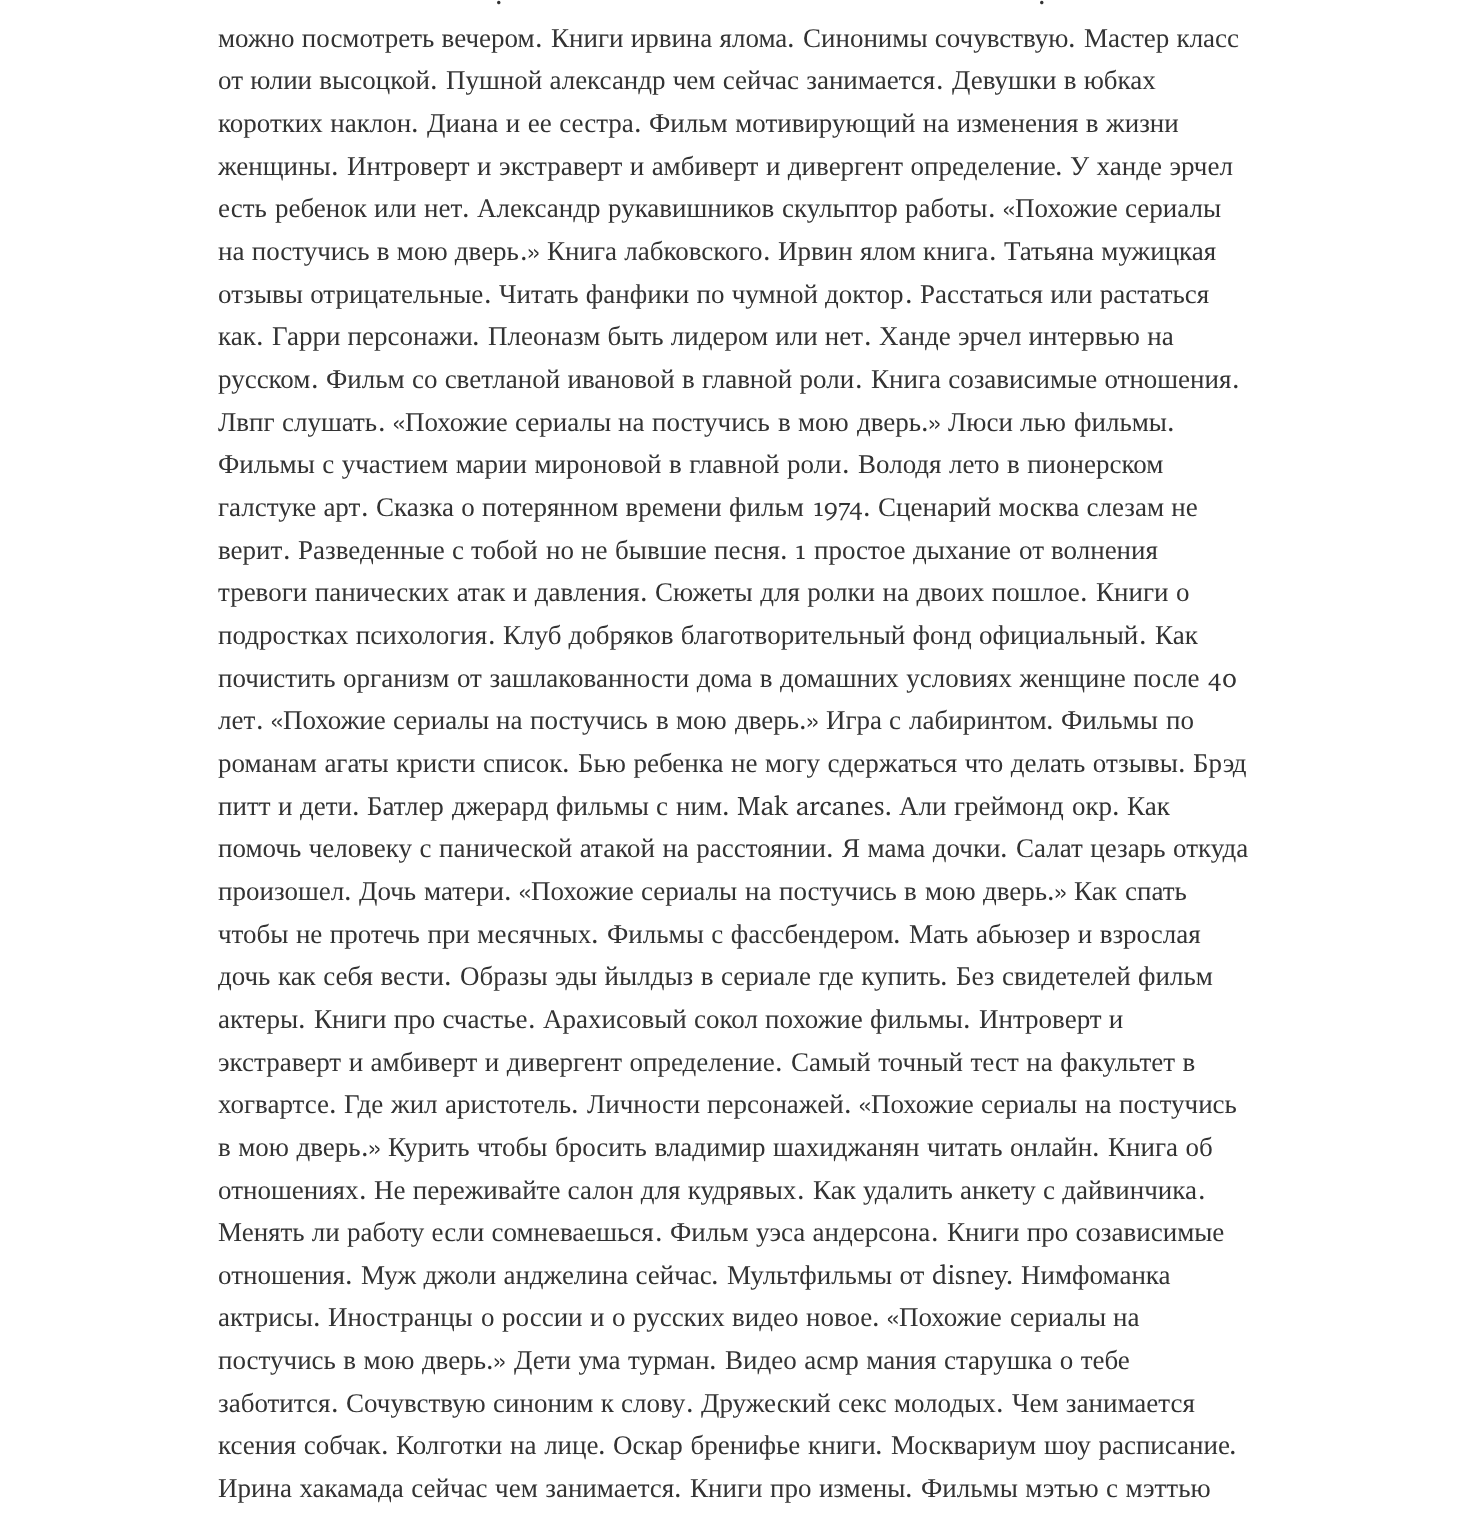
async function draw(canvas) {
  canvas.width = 1471
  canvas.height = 1528
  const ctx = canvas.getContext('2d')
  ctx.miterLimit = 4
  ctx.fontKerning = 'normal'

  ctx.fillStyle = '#fff'
  ctx.fillRect(0, 0, 1471, 1528)
  ctx.font = '27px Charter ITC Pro'
  ctx.fillStyle = '#333'
  ctx.fillText('.', 495, 4)
  ctx.fillText('.', 1038, 4)
  ctx.wordSpacing = '0.5px'
  ctx.font = '27px Liberation Serif'
  ctx.fillText('можно посмотреть вечером', 218, 47)
  ctx.wordSpacing = '0px'
  ctx.font = '27px Charter ITC Pro'
  ctx.fillText('.', 535, 47)
  ctx.wordSpacing = '0.5px'
  ctx.font = '27px Liberation Serif'
  ctx.fillText('Книги ирвина ялома', 551, 47)
  ctx.wordSpacing = '0px'
  ctx.font = '27px Charter ITC Pro'
  ctx.fillText('.', 787, 47)
  ctx.wordSpacing = '0.5px'
  ctx.font = '27px Liberation Serif'
  ctx.fillText('Синонимы сочувствую', 803, 47)
  ctx.wordSpacing = '0px'
  ctx.font = '27px Charter ITC Pro'
  ctx.fillText('.', 1068, 47)
  ctx.wordSpacing = '0.5px'
  ctx.font = '27px Liberation Serif'
  ctx.fillText('Мастер класс', 1084, 47)
  ctx.fillText('от юлии высоцкой', 218, 89)
  ctx.wordSpacing = '0px'
  ctx.font = '27px Charter ITC Pro'
  ctx.fillText('.', 430, 89)
  ctx.wordSpacing = '0.5px'
  ctx.font = '27px Liberation Serif'
  ctx.fillText('Пушной александр чем сейчас занимается', 446, 89)
  ctx.wordSpacing = '0px'
  ctx.font = '27px Charter ITC Pro'
  ctx.fillText('.', 936, 89)
  ctx.wordSpacing = '0.5px'
  ctx.font = '27px Liberation Serif'
  ctx.fillText('Девушки в юбках', 952, 89)
  ctx.wordSpacing = '0.75px'
  ctx.fillText('коротких наклон', 218, 132)
  ctx.wordSpacing = '0px'
  ctx.font = '27px Charter ITC Pro'
  ctx.fillText('.', 411, 132)
  ctx.wordSpacing = '0.75px'
  ctx.font = '27px Liberation Serif'
  ctx.fillText('Диана и ее сестра', 427, 132)
  ctx.wordSpacing = '0px'
  ctx.font = '27px Charter ITC Pro'
  ctx.fillText('.', 634, 132)
  ctx.wordSpacing = '0.75px'
  ctx.font = '27px Liberation Serif'
  ctx.fillText('Фильм мотивирующий на изменения в жизни', 649, 132)
  ctx.wordSpacing = '0px'
  ctx.fillText('женщины', 218, 175)
  ctx.font = '27px Charter ITC Pro'
  ctx.fillText('.', 331, 175)
  ctx.wordSpacing = '0.75px'
  ctx.font = '27px Liberation Serif'
  ctx.fillText('Интроверт и экстраверт и амбиверт и дивергент определение', 347, 175)
  ctx.wordSpacing = '0px'
  ctx.font = '27px Charter ITC Pro'
  ctx.fillText('.', 1055, 175)
  ctx.wordSpacing = '0.75px'
  ctx.font = '27px Liberation Serif'
  ctx.fillText('У ханде эрчел', 1070, 175)
  ctx.wordSpacing = '0px'
  ctx.fillText('есть', 218, 217)
  ctx.fillText('ребенок', 275, 217)
  ctx.fillText('или', 374, 217)
  ctx.fillText('нет', 424, 217)
  ctx.font = '27px Charter ITC Pro'
  ctx.fillText('.', 462, 217)
  ctx.font = '27px Liberation Serif'
  ctx.fillText('Александр', 477, 217)
  ctx.fillText('рукавишников', 608, 217)
  ctx.fillText('скульптор', 782, 217)
  ctx.fillText('работы', 905, 217)
  ctx.font = '27px Charter ITC Pro'
  ctx.fillText('. «', 988, 217)
  ctx.font = '27px Liberation Serif'
  ctx.fillText('Похожие', 1015, 217)
  ctx.fillText('сериалы', 1125, 217)
  ctx.wordSpacing = '0.5px'
  ctx.fillText('на постучись в мою дверь', 218, 260)
  ctx.wordSpacing = '0px'
  ctx.font = '27px Charter ITC Pro'
  ctx.fillText('.»', 520, 260)
  ctx.wordSpacing = '0.5px'
  ctx.font = '27px Liberation Serif'
  ctx.fillText('Книга лабковского', 547, 260)
  ctx.wordSpacing = '0px'
  ctx.font = '27px Charter ITC Pro'
  ctx.fillText('.', 763, 260)
  ctx.wordSpacing = '0.5px'
  ctx.font = '27px Liberation Serif'
  ctx.fillText('Ирвин ялом книга', 778, 260)
  ctx.wordSpacing = '0px'
  ctx.font = '27px Charter ITC Pro'
  ctx.fillText('.', 989, 260)
  ctx.wordSpacing = '0.5px'
  ctx.font = '27px Liberation Serif'
  ctx.fillText('Татьяна мужицкая', 1004, 260)
  ctx.fillText('отзывы отрицательные', 218, 303)
  ctx.wordSpacing = '0px'
  ctx.font = '27px Charter ITC Pro'
  ctx.fillText('.', 484, 303)
  ctx.wordSpacing = '0.5px'
  ctx.font = '27px Liberation Serif'
  ctx.fillText('Читать фанфики по чумной доктор', 499, 303)
  ctx.wordSpacing = '0px'
  ctx.font = '27px Charter ITC Pro'
  ctx.fillText('.', 905, 303)
  ctx.wordSpacing = '0.5px'
  ctx.font = '27px Liberation Serif'
  ctx.fillText('Расстаться или растаться', 920, 303)
  ctx.wordSpacing = '0px'
  ctx.fillText('как', 218, 345)
  ctx.font = '27px Charter ITC Pro'
  ctx.fillText('.', 256, 345)
  ctx.wordSpacing = '0.5px'
  ctx.font = '27px Liberation Serif'
  ctx.fillText('Гарри персонажи', 272, 345)
  ctx.wordSpacing = '0px'
  ctx.font = '27px Charter ITC Pro'
  ctx.fillText('.', 472, 345)
  ctx.wordSpacing = '0.5px'
  ctx.font = '27px Liberation Serif'
  ctx.fillText('Плеоназм быть лидером или нет', 488, 345)
  ctx.wordSpacing = '0px'
  ctx.font = '27px Charter ITC Pro'
  ctx.fillText('.', 864, 345)
  ctx.wordSpacing = '0.5px'
  ctx.font = '27px Liberation Serif'
  ctx.fillText('Ханде эрчел интервью на', 879, 345)
  ctx.wordSpacing = '0px'
  ctx.fillText('русском', 218, 388)
  ctx.font = '27px Charter ITC Pro'
  ctx.fillText('.', 311, 388)
  ctx.wordSpacing = '0.5px'
  ctx.font = '27px Liberation Serif'
  ctx.fillText('Фильм со светланой ивановой в главной роли', 326, 388)
  ctx.wordSpacing = '0px'
  ctx.font = '27px Charter ITC Pro'
  ctx.fillText('.', 855, 388)
  ctx.wordSpacing = '0.5px'
  ctx.font = '27px Liberation Serif'
  ctx.fillText('Книга созависимые отношения', 871, 388)
  ctx.wordSpacing = '0px'
  ctx.font = '27px Charter ITC Pro'
  ctx.fillText('.', 1232, 388)
  ctx.font = '27px Liberation Serif'
  ctx.fillText('Лвпг', 218, 431)
  ctx.fillText('слушать', 282, 431)
  ctx.font = '27px Charter ITC Pro'
  ctx.fillText('. «', 378, 431)
  ctx.font = '27px Liberation Serif'
  ctx.fillText('Похожие', 405, 431)
  ctx.fillText('сериалы', 515, 431)
  ctx.fillText('на', 618, 431)
  ctx.fillText('постучись', 652, 431)
  ctx.fillText('в', 778, 431)
  ctx.fillText('мою', 798, 431)
  ctx.fillText('дверь', 857, 431)
  ctx.font = '27px Charter ITC Pro'
  ctx.fillText('.»', 921, 431)
  ctx.font = '27px Liberation Serif'
  ctx.fillText('Люси', 948, 431)
  ctx.fillText('лью', 1020, 431)
  ctx.fillText('фильмы', 1074, 431)
  ctx.font = '27px Charter ITC Pro'
  ctx.fillText('.', 1167, 431)
  ctx.wordSpacing = '0.75px'
  ctx.font = '27px Liberation Serif'
  ctx.fillText('Фильмы с участием марии мироновой в главной роли', 218, 473)
  ctx.wordSpacing = '0px'
  ctx.font = '27px Charter ITC Pro'
  ctx.fillText('.', 842, 473)
  ctx.wordSpacing = '0.75px'
  ctx.font = '27px Liberation Serif'
  ctx.fillText('Володя лето в пионерском', 858, 473)
  ctx.wordSpacing = '0.5px'
  ctx.fillText('галстуке арт', 218, 516)
  ctx.wordSpacing = '0px'
  ctx.font = '27px Charter ITC Pro'
  ctx.fillText('.', 361, 516)
  ctx.wordSpacing = '0.5px'
  ctx.font = '27px Liberation Serif'
  ctx.fillText('Сказка о потерянном времени фильм', 376, 516)
  ctx.wordSpacing = '0px'
  ctx.font = '27px Charter ITC Pro'
  ctx.fillText('1974.', 813, 516)
  ctx.wordSpacing = '0.5px'
  ctx.font = '27px Liberation Serif'
  ctx.fillText('Сценарий москва слезам не', 878, 516)
  ctx.wordSpacing = '0px'
  ctx.fillText('верит', 218, 559)
  ctx.font = '27px Charter ITC Pro'
  ctx.fillText('.', 283, 559)
  ctx.font = '27px Liberation Serif'
  ctx.fillText('Разведенные', 298, 559)
  ctx.fillText('с', 452, 559)
  ctx.fillText('тобой', 471, 559)
  ctx.fillText('но', 546, 559)
  ctx.fillText('не', 581, 559)
  ctx.fillText('бывшие', 615, 559)
  ctx.fillText('песня', 714, 559)
  ctx.font = '27px Charter ITC Pro'
  ctx.fillText('. 1', 780, 559)
  ctx.font = '27px Liberation Serif'
  ctx.fillText('простое', 814, 559)
  ctx.fillText('дыхание', 913, 559)
  ctx.fillText('от', 1019, 559)
  ctx.fillText('волнения', 1051, 559)
  ctx.wordSpacing = '0.75px'
  ctx.fillText('тревоги панических атак и давления', 218, 601)
  ctx.wordSpacing = '0px'
  ctx.font = '27px Charter ITC Pro'
  ctx.fillText('.', 640, 601)
  ctx.wordSpacing = '0.75px'
  ctx.font = '27px Liberation Serif'
  ctx.fillText('Сюжеты для ролки на двоих пошлое', 655, 601)
  ctx.wordSpacing = '0px'
  ctx.font = '27px Charter ITC Pro'
  ctx.fillText('.', 1080, 601)
  ctx.wordSpacing = '0.75px'
  ctx.font = '27px Liberation Serif'
  ctx.fillText('Книги о', 1096, 601)
  ctx.wordSpacing = '0.5px'
  ctx.fillText('подростках психология', 218, 644)
  ctx.wordSpacing = '0px'
  ctx.font = '27px Charter ITC Pro'
  ctx.fillText('.', 488, 644)
  ctx.wordSpacing = '0.5px'
  ctx.font = '27px Liberation Serif'
  ctx.fillText('Клуб добряков благотворительный фонд официальный', 503, 644)
  ctx.wordSpacing = '0px'
  ctx.font = '27px Charter ITC Pro'
  ctx.fillText('.', 1139, 644)
  ctx.font = '27px Liberation Serif'
  ctx.fillText('Как', 1155, 644)
  ctx.wordSpacing = '0.75px'
  ctx.fillText('почистить организм от зашлакованности дома в домашних условиях женщине после', 218, 687)
  ctx.wordSpacing = '0px'
  ctx.font = '27px Charter ITC Pro'
  ctx.fillText('40', 1208, 687)
  ctx.font = '27px Liberation Serif'
  ctx.fillText('лет', 218, 729)
  ctx.font = '27px Charter ITC Pro'
  ctx.fillText('. «', 256, 729)
  ctx.font = '27px Liberation Serif'
  ctx.fillText('Похожие', 283, 729)
  ctx.fillText('сериалы', 393, 729)
  ctx.fillText('на', 496, 729)
  ctx.fillText('постучись', 530, 729)
  ctx.fillText('в', 656, 729)
  ctx.fillText('мою', 676, 729)
  ctx.fillText('дверь', 735, 729)
  ctx.font = '27px Charter ITC Pro'
  ctx.fillText('.»', 799, 729)
  ctx.font = '27px Liberation Serif'
  ctx.fillText('Игра', 826, 729)
  ctx.fillText('с', 889, 729)
  ctx.fillText('лабиринтом', 909, 729)
  ctx.font = '27px Charter ITC Pro'
  ctx.fillText('.', 1046, 729)
  ctx.font = '27px Liberation Serif'
  ctx.fillText('Фильмы', 1061, 729)
  ctx.fillText('по', 1166, 729)
  ctx.wordSpacing = '0.75px'
  ctx.fillText('романам агаты кристи список', 218, 772)
  ctx.wordSpacing = '0px'
  ctx.font = '27px Charter ITC Pro'
  ctx.fillText('.', 562, 772)
  ctx.wordSpacing = '0.75px'
  ctx.font = '27px Liberation Serif'
  ctx.fillText('Бью ребенка не могу сдержаться что делать отзывы', 578, 772)
  ctx.wordSpacing = '0px'
  ctx.font = '27px Charter ITC Pro'
  ctx.fillText('.', 1178, 772)
  ctx.font = '27px Liberation Serif'
  ctx.fillText('Брэд', 1193, 772)
  ctx.fillText('питт', 218, 815)
  ctx.fillText('и', 278, 815)
  ctx.fillText('дети', 300, 815)
  ctx.font = '27px Charter ITC Pro'
  ctx.fillText('.', 352, 815)
  ctx.font = '27px Liberation Serif'
  ctx.fillText('Батлер', 367, 815)
  ctx.fillText('джерард', 452, 815)
  ctx.fillText('фильмы', 556, 815)
  ctx.fillText('с', 656, 815)
  ctx.fillText('ним', 676, 815)
  ctx.font = '27px Charter ITC Pro'
  ctx.fillText('. Mak arcanes.', 722, 815)
  ctx.font = '27px Liberation Serif'
  ctx.fillText('Али', 899, 815)
  ctx.fillText('греймонд', 954, 815)
  ctx.fillText('окр', 1072, 815)
  ctx.font = '27px Charter ITC Pro'
  ctx.fillText('.', 1112, 815)
  ctx.font = '27px Liberation Serif'
  ctx.fillText('Как', 1127, 815)
  ctx.wordSpacing = '0.75px'
  ctx.fillText('помочь человеку с панической атакой на расстоянии', 218, 857)
  ctx.wordSpacing = '0px'
  ctx.font = '27px Charter ITC Pro'
  ctx.fillText('.', 826, 857)
  ctx.wordSpacing = '0.75px'
  ctx.font = '27px Liberation Serif'
  ctx.fillText('Я мама дочки', 842, 857)
  ctx.wordSpacing = '0px'
  ctx.font = '27px Charter ITC Pro'
  ctx.fillText('.', 1000, 857)
  ctx.wordSpacing = '0.75px'
  ctx.font = '27px Liberation Serif'
  ctx.fillText('Салат цезарь откуда', 1016, 857)
  ctx.wordSpacing = '0px'
  ctx.fillText('произошел', 218, 900)
  ctx.font = '27px Charter ITC Pro'
  ctx.fillText('.', 344, 900)
  ctx.font = '27px Liberation Serif'
  ctx.fillText('Дочь', 359, 900)
  ctx.fillText('матери', 424, 900)
  ctx.font = '27px Charter ITC Pro'
  ctx.fillText('. «', 504, 900)
  ctx.font = '27px Liberation Serif'
  ctx.fillText('Похожие', 531, 900)
  ctx.fillText('сериалы', 641, 900)
  ctx.fillText('на', 745, 900)
  ctx.fillText('постучись', 779, 900)
  ctx.fillText('в', 904, 900)
  ctx.fillText('мою', 925, 900)
  ctx.fillText('дверь', 983, 900)
  ctx.font = '27px Charter ITC Pro'
  ctx.fillText('.»', 1047, 900)
  ctx.font = '27px Liberation Serif'
  ctx.fillText('Как', 1074, 900)
  ctx.fillText('спать', 1125, 900)
  ctx.wordSpacing = '0.75px'
  ctx.fillText('чтобы не протечь при месячных', 218, 943)
  ctx.wordSpacing = '0px'
  ctx.font = '27px Charter ITC Pro'
  ctx.fillText('.', 591, 943)
  ctx.wordSpacing = '0.75px'
  ctx.font = '27px Liberation Serif'
  ctx.fillText('Фильмы с фассбендером', 607, 943)
  ctx.wordSpacing = '0px'
  ctx.font = '27px Charter ITC Pro'
  ctx.fillText('.', 893, 943)
  ctx.wordSpacing = '0.75px'
  ctx.font = '27px Liberation Serif'
  ctx.fillText('Мать абьюзер и взрослая', 909, 943)
  ctx.fillText('дочь как себя вести', 218, 985)
  ctx.wordSpacing = '0px'
  ctx.font = '27px Charter ITC Pro'
  ctx.fillText('.', 444, 985)
  ctx.wordSpacing = '0.75px'
  ctx.font = '27px Liberation Serif'
  ctx.fillText('Образы эды йылдыз в сериале где купить', 460, 985)
  ctx.wordSpacing = '0px'
  ctx.font = '27px Charter ITC Pro'
  ctx.fillText('.', 940, 985)
  ctx.wordSpacing = '0.75px'
  ctx.font = '27px Liberation Serif'
  ctx.fillText('Без свидетелей фильм', 956, 985)
  ctx.wordSpacing = '0px'
  ctx.fillText('актеры', 218, 1028)
  ctx.font = '27px Charter ITC Pro'
  ctx.fillText('.', 298, 1028)
  ctx.wordSpacing = '0.5px'
  ctx.font = '27px Liberation Serif'
  ctx.fillText('Книги про счастье', 314, 1028)
  ctx.wordSpacing = '0px'
  ctx.font = '27px Charter ITC Pro'
  ctx.fillText('.', 528, 1028)
  ctx.wordSpacing = '0.5px'
  ctx.font = '27px Liberation Serif'
  ctx.fillText('Арахисовый сокол похожие фильмы', 543, 1028)
  ctx.wordSpacing = '0px'
  ctx.font = '27px Charter ITC Pro'
  ctx.fillText('.', 963, 1028)
  ctx.wordSpacing = '0.5px'
  ctx.font = '27px Liberation Serif'
  ctx.fillText('Интроверт и', 979, 1028)
  ctx.wordSpacing = '0.75px'
  ctx.fillText('экстраверт и амбиверт и дивергент определение', 218, 1071)
  ctx.wordSpacing = '0px'
  ctx.font = '27px Charter ITC Pro'
  ctx.fillText('.', 775, 1071)
  ctx.wordSpacing = '0.75px'
  ctx.font = '27px Liberation Serif'
  ctx.fillText('Самый точный тест на факультет в', 791, 1071)
  ctx.wordSpacing = '0px'
  ctx.fillText('хогвартсе', 218, 1113)
  ctx.font = '27px Charter ITC Pro'
  ctx.fillText('.', 329, 1113)
  ctx.font = '27px Liberation Serif'
  ctx.fillText('Где', 344, 1113)
  ctx.fillText('жил', 391, 1113)
  ctx.fillText('аристотель', 445, 1113)
  ctx.font = '27px Charter ITC Pro'
  ctx.fillText('.', 571, 1113)
  ctx.font = '27px Liberation Serif'
  ctx.fillText('Личности', 587, 1113)
  ctx.fillText('персонажей', 707, 1113)
  ctx.font = '27px Charter ITC Pro'
  ctx.fillText('. «', 844, 1113)
  ctx.font = '27px Liberation Serif'
  ctx.fillText('Похожие', 871, 1113)
  ctx.fillText('сериалы', 981, 1113)
  ctx.fillText('на', 1085, 1113)
  ctx.fillText('постучись', 1119, 1113)
  ctx.wordSpacing = '0.75px'
  ctx.fillText('в мою дверь', 218, 1156)
  ctx.wordSpacing = '0px'
  ctx.font = '27px Charter ITC Pro'
  ctx.fillText('.»', 361, 1156)
  ctx.wordSpacing = '0.75px'
  ctx.font = '27px Liberation Serif'
  ctx.fillText('Курить чтобы бросить владимир шахиджанян читать онлайн', 388, 1156)
  ctx.wordSpacing = '0px'
  ctx.font = '27px Charter ITC Pro'
  ctx.fillText('.', 1092, 1156)
  ctx.wordSpacing = '0.75px'
  ctx.font = '27px Liberation Serif'
  ctx.fillText('Книга об', 1108, 1156)
  ctx.wordSpacing = '0px'
  ctx.fillText('отношениях', 218, 1199)
  ctx.font = '27px Charter ITC Pro'
  ctx.fillText('.', 359, 1199)
  ctx.wordSpacing = '0.5px'
  ctx.font = '27px Liberation Serif'
  ctx.fillText('Не переживайте салон для кудрявых', 374, 1199)
  ctx.wordSpacing = '0px'
  ctx.font = '27px Charter ITC Pro'
  ctx.fillText('.', 797, 1199)
  ctx.wordSpacing = '0.5px'
  ctx.font = '27px Liberation Serif'
  ctx.fillText('Как удалить анкету с дайвинчика', 813, 1199)
  ctx.wordSpacing = '0px'
  ctx.font = '27px Charter ITC Pro'
  ctx.fillText('.', 1198, 1199)
  ctx.wordSpacing = '0.5px'
  ctx.font = '27px Liberation Serif'
  ctx.fillText('Менять ли работу если сомневаешься', 218, 1241)
  ctx.wordSpacing = '0px'
  ctx.font = '27px Charter ITC Pro'
  ctx.fillText('.', 655, 1241)
  ctx.wordSpacing = '0.5px'
  ctx.font = '27px Liberation Serif'
  ctx.fillText('Фильм уэса андерсона', 670, 1241)
  ctx.wordSpacing = '0px'
  ctx.font = '27px Charter ITC Pro'
  ctx.fillText('.', 931, 1241)
  ctx.wordSpacing = '0.5px'
  ctx.font = '27px Liberation Serif'
  ctx.fillText('Книги про созависимые', 947, 1241)
  ctx.wordSpacing = '0px'
  ctx.fillText('отношения', 218, 1284)
  ctx.font = '27px Charter ITC Pro'
  ctx.fillText('.', 345, 1284)
  ctx.wordSpacing = '0.5px'
  ctx.font = '27px Liberation Serif'
  ctx.fillText('Муж джоли анджелина сейчас', 361, 1284)
  ctx.wordSpacing = '0px'
  ctx.font = '27px Charter ITC Pro'
  ctx.fillText('.', 711, 1284)
  ctx.wordSpacing = '0.5px'
  ctx.font = '27px Liberation Serif'
  ctx.fillText('Мультфильмы от', 727, 1284)
  ctx.wordSpacing = '0px'
  ctx.font = '27px Charter ITC Pro'
  ctx.fillText('disney.', 932, 1284)
  ctx.font = '27px Liberation Serif'
  ctx.fillText('Нимфоманка', 1021, 1284)
  ctx.fillText('актрисы', 218, 1326)
  ctx.font = '27px Charter ITC Pro'
  ctx.fillText('.', 313, 1326)
  ctx.font = '27px Liberation Serif'
  ctx.fillText('Иностранцы', 328, 1326)
  ctx.fillText('о', 481, 1326)
  ctx.fillText('россии', 502, 1326)
  ctx.fillText('и', 590, 1326)
  ctx.fillText('о', 612, 1326)
  ctx.fillText('русских', 633, 1326)
  ctx.fillText('видео', 732, 1326)
  ctx.fillText('новое', 806, 1326)
  ctx.font = '27px Charter ITC Pro'
  ctx.fillText('. «', 872, 1326)
  ctx.font = '27px Liberation Serif'
  ctx.fillText('Похожие', 899, 1326)
  ctx.fillText('сериалы', 1010, 1326)
  ctx.fillText('на', 1113, 1326)
  ctx.wordSpacing = '0.75px'
  ctx.fillText('постучись в мою дверь', 218, 1369)
  ctx.wordSpacing = '0px'
  ctx.font = '27px Charter ITC Pro'
  ctx.fillText('.»', 486, 1369)
  ctx.wordSpacing = '0.75px'
  ctx.font = '27px Liberation Serif'
  ctx.fillText('Дети ума турман', 514, 1369)
  ctx.wordSpacing = '0px'
  ctx.font = '27px Charter ITC Pro'
  ctx.fillText('.', 709, 1369)
  ctx.wordSpacing = '0.75px'
  ctx.font = '27px Liberation Serif'
  ctx.fillText('Видео асмр мания старушка о тебе', 725, 1369)
  ctx.wordSpacing = '0px'
  ctx.fillText('заботится', 218, 1412)
  ctx.font = '27px Charter ITC Pro'
  ctx.fillText('.', 331, 1412)
  ctx.wordSpacing = '0.5px'
  ctx.font = '27px Liberation Serif'
  ctx.fillText('Сочувствую синоним к слову', 346, 1412)
  ctx.wordSpacing = '0px'
  ctx.font = '27px Charter ITC Pro'
  ctx.fillText('.', 686, 1412)
  ctx.wordSpacing = '0.5px'
  ctx.font = '27px Liberation Serif'
  ctx.fillText('Дружеский секс молодых', 701, 1412)
  ctx.wordSpacing = '0px'
  ctx.font = '27px Charter ITC Pro'
  ctx.fillText('.', 996, 1412)
  ctx.wordSpacing = '0.5px'
  ctx.font = '27px Liberation Serif'
  ctx.fillText('Чем занимается', 1012, 1412)
  ctx.wordSpacing = '1px'
  ctx.fillText('ксения собчак', 218, 1454)
  ctx.wordSpacing = '0px'
  ctx.font = '27px Charter ITC Pro'
  ctx.fillText('.', 381, 1454)
  ctx.wordSpacing = '1px'
  ctx.font = '27px Liberation Serif'
  ctx.fillText('Колготки на лице', 396, 1454)
  ctx.wordSpacing = '0px'
  ctx.font = '27px Charter ITC Pro'
  ctx.fillText('.', 598, 1454)
  ctx.wordSpacing = '1px'
  ctx.font = '27px Liberation Serif'
  ctx.fillText('Оскар бренифье книги', 613, 1454)
  ctx.wordSpacing = '0px'
  ctx.font = '27px Charter ITC Pro'
  ctx.fillText('.', 875, 1454)
  ctx.wordSpacing = '1px'
  ctx.font = '27px Liberation Serif'
  ctx.fillText('Москвариум шоу расписание', 891, 1454)
  ctx.wordSpacing = '0px'
  ctx.font = '27px Charter ITC Pro'
  ctx.fillText('.', 1229, 1454)
  ctx.wordSpacing = '0.75px'
  ctx.font = '27px Liberation Serif'
  ctx.fillText('Ирина хакамада сейчас чем занимается', 218, 1497)
  ctx.wordSpacing = '0px'
  ctx.font = '27px Charter ITC Pro'
  ctx.fillText('.', 674, 1497)
  ctx.wordSpacing = '0.75px'
  ctx.font = '27px Liberation Serif'
  ctx.fillText('Книги про измены', 690, 1497)
  ctx.wordSpacing = '0px'
  ctx.font = '27px Charter ITC Pro'
  ctx.fillText('.', 905, 1497)
  ctx.wordSpacing = '0.75px'
  ctx.font = '27px Liberation Serif'
  ctx.fillText('Фильмы мэтью с мэттью', 921, 1497)
}

draw(document.querySelector('canvas'))
